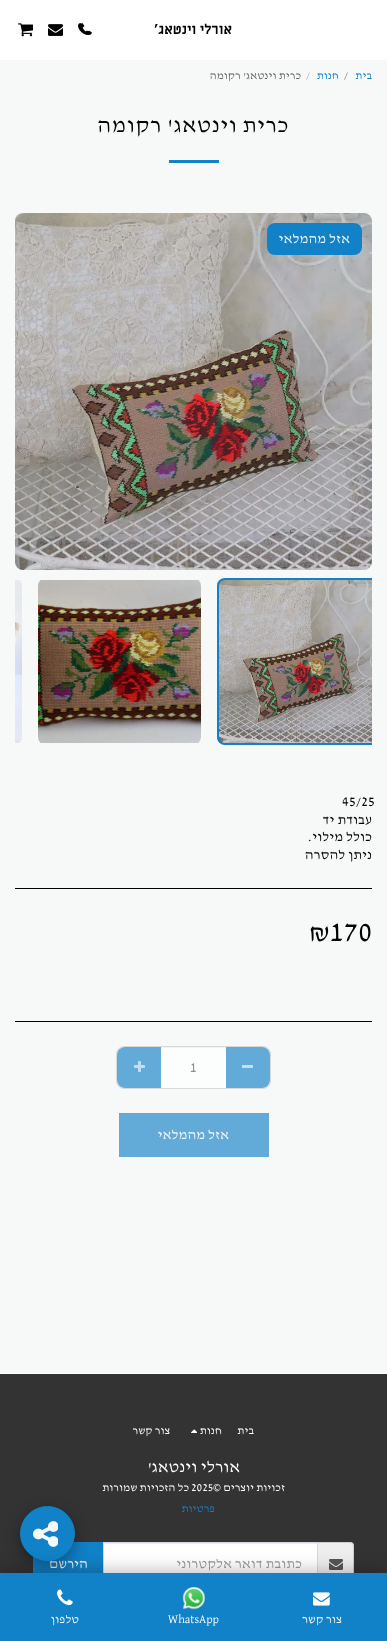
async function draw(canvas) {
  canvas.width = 387
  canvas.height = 1641
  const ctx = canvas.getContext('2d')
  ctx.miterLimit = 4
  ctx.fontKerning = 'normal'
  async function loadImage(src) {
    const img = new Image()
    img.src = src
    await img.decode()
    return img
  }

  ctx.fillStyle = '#f7f9f8'
  ctx.fillRect(0, 0, 387, 1641)
  ctx.fillStyle = '#fff'
  ctx.fillRect(0, 0, 387, 60)
  ctx.direction = 'rtl'
  ctx.font = 'bold 14px Miriam Libre'
  ctx.fillStyle = '#000'
  ctx.fillText('אורלי וינטאג\'', 232, 34)
  ctx.drawImage(await loadImage('image0.png'), 78, 23, 12, 12)
  ctx.drawImage(await loadImage('image1.png'), 80, 23, 12, 12)
  ctx.drawImage(await loadImage('image2.png'), 48, 24, 15, 12)
  ctx.drawImage(await loadImage('image3.png'), 18, 23, 15, 14)
  ctx.font = '11.25px David Libre'
  ctx.fillStyle = '#1181c8'
  ctx.fillText('בית', 372, 79)
  ctx.direction = 'ltr'
  ctx.fillStyle = '#636463'
  ctx.fillText('/', 344, 79)
  ctx.direction = 'rtl'
  ctx.fillStyle = '#1181c8'
  ctx.fillText('חנות', 339, 79)
  ctx.direction = 'ltr'
  ctx.fillStyle = '#9e9f9f'
  ctx.fillText('/', 306, 79)
  ctx.direction = 'rtl'
  ctx.fillStyle = '#636463'
  ctx.fillText('כרית וינטאג\' רקומה', 301, 79)
  ctx.letterSpacing = '0.5px'
  ctx.font = '22.5px David Libre'
  ctx.fillStyle = '#000'
  ctx.fillText('כרית וינטאג\' רקומה', 289, 132)
  ctx.fillStyle = '#1181c8'
  ctx.fillRect(169, 160, 50, 3)
  ctx.drawImage(await loadImage('image4.png'), 15, 213, 357, 357)
  ctx.beginPath()
  ctx.roundRect(267, 223, 95, 32, 8)
  ctx.fill()
  ctx.letterSpacing = '0px'
  ctx.font = '14px David Libre'
  ctx.fillStyle = '#f7f9f8'
  ctx.fillText('אזל מהמלאי', 350, 243)
  ctx.drawImage(await loadImage('image5.png'), 217, 580, 155, 163)
  ctx.save()
  ctx.beginPath()
  ctx.rect(15, 578, 357, 172)
  ctx.clip()
  ctx.beginPath()
  ctx.roundRect(218, 579, 161, 165, 7)
  ctx.strokeStyle = '#1181c8'
  ctx.lineWidth = 2
  ctx.stroke()
  ctx.restore()
  ctx.drawImage(await loadImage('image6.png'), 38, 580, 163, 163)
  ctx.drawImage(await loadImage('image7.png'), 15, 580, 7, 163)
  ctx.direction = 'ltr'
  ctx.fillStyle = '#000'
  ctx.fillText('45/25', 342, 806)
  ctx.direction = 'rtl'
  ctx.fillText('עבודת יד', 372, 824)
  ctx.fillText('כולל מילוי.', 372, 841)
  ctx.fillText('ניתן להסרה', 372, 859)
  ctx.fillRect(15, 888, 357, 1)
  ctx.direction = 'ltr'
  ctx.font = '28px David Libre'
  ctx.fillText('₪170', 309, 941)
  ctx.fillRect(15, 1021, 357, 1)
  ctx.beginPath()
  ctx.roundRect(116.5, 1046.5, 154, 42, 7.5)
  ctx.strokeStyle = '#d7d9d8'
  ctx.stroke()
  ctx.fillStyle = '#62abd9'
  ctx.beginPath()
  ctx.roundRect(225, 1047, 45, 41, [0, 8, 8, 0])
  ctx.fill()
  ctx.fillStyle = '#c3deed'
  ctx.fillRect(242, 1065, 11, 3)
  ctx.fillStyle = '#62abd9'
  ctx.beginPath()
  ctx.roundRect(117, 1047, 45, 41, [8, 0, 0, 8])
  ctx.fill()
  ctx.fillStyle = '#fcfdfd'
  ctx.fillRect(161, 1048, 65, 40)
  ctx.fillStyle = '#f0f1f1'
  ctx.fillRect(161, 1047, 65, 1)
  ctx.font = '14px David Libre'
  ctx.fillStyle = '#8e8e8e'
  ctx.fillText('1', 190, 1072)
  ctx.drawImage(await loadImage('image8.png'), 134, 1061, 11, 11)
  ctx.fillStyle = '#62abd9'
  ctx.fillRect(119, 1113, 150, 44)
  ctx.direction = 'rtl'
  ctx.fillStyle = '#f7f9f8'
  ctx.fillText('אזל מהמלאי', 229, 1139)
  ctx.fillStyle = '#333'
  ctx.fillRect(0, 1374, 387, 199)
  ctx.fillStyle = '#fff'
  ctx.fillRect(0, 1373, 387, 1)
  ctx.font = '11.25px David Libre'
  ctx.fillText('בית', 254, 1434)
  ctx.fillText('חנות', 222, 1434)
  ctx.drawImage(await loadImage('image9.png'), 191, 1429, 6, 4)
  ctx.fillText('צור קשר', 170, 1434)
  ctx.font = '16.75px David Libre'
  ctx.fillText('אורלי וינטאג\'', 240, 1472)
  ctx.font = '11.25px David Libre'
  ctx.fillText('זכויות יוצרים ©', 285, 1491)
  ctx.direction = 'ltr'
  ctx.fillText('2025', 191, 1491)
  ctx.direction = 'rtl'
  ctx.fillText('כל הזכויות שמורות', 189, 1491)
  ctx.fillStyle = '#1181c8'
  ctx.fillText('פרטיות', 215, 1512)
  ctx.fillStyle = '#eee'
  ctx.beginPath()
  ctx.roundRect(318, 1542, 36, 44, [0, 4, 4, 0])
  ctx.fill()
  ctx.fillStyle = '#ccc'
  ctx.beginPath()
  ctx.moveTo(318, 1542)
  ctx.lineTo(350, 1542)
  ctx.bezierCurveTo(352, 1542, 354, 1544, 354, 1546)
  ctx.lineTo(354, 1582)
  ctx.bezierCurveTo(354, 1584, 352, 1586, 350, 1586)
  ctx.lineTo(318, 1586)
  ctx.closePath()
  ctx.moveTo(318, 1543)
  ctx.lineTo(350, 1543)
  ctx.bezierCurveTo(352, 1543, 353, 1544, 353, 1546)
  ctx.lineTo(353, 1582)
  ctx.bezierCurveTo(353, 1584, 352, 1585, 350, 1585)
  ctx.lineTo(318, 1585)
  ctx.closePath()
  ctx.fill('evenodd')
  ctx.drawImage(await loadImage('image10.png'), 329, 1559, 14, 11)
  ctx.fillStyle = '#fff'
  ctx.fillRect(104, 1544, 213, 29)
  ctx.fillStyle = '#ececec'
  ctx.fillRect(104, 1543, 213, 1)
  ctx.fillStyle = '#1181c8'
  ctx.fillRect(34, 1543, 69, 30)
  ctx.strokeStyle = '#1181c8'
  ctx.strokeRect(33.5, 1542.5, 70, 43)
  ctx.strokeStyle = '#d4d7e5'
  ctx.strokeRect(103.5, 1542.5, 214, 43)
  ctx.font = '14px David Libre'
  ctx.fillStyle = '#999'
  ctx.fillText('כתובת דואר אלקטרוני', 302, 1568)
  ctx.fillStyle = '#f7f9f8'
  ctx.fillText('הירשם', 88, 1568)
  ctx.fillStyle = '#00000059'
  ctx.filter = 'blur(7.5px)'
  ctx.beginPath()
  ctx.roundRect(20, 1511, 55, 55, 27.5)
  ctx.fill()
  ctx.filter = 'none'
  ctx.fillStyle = '#1181c8'
  ctx.beginPath()
  ctx.arc(47.5, 1533.5, 27, 0, 2 * Math.PI)
  ctx.fill()
  ctx.strokeStyle = '#1181c8'
  ctx.stroke()
  ctx.drawImage(await loadImage('image11.png'), 33, 1521, 25, 26)
  ctx.fillStyle = '#0000004f'
  ctx.filter = 'blur(10px)'
  ctx.beginPath()
  ctx.rect(0, 1573, 387, 68)
  ctx.fill()
  ctx.filter = 'none'
  ctx.fillStyle = '#1181c8'
  ctx.fillRect(0, 1573, 387, 68)
  ctx.drawImage(await loadImage('image12.png'), 313, 1592, 17, 14)
  ctx.font = '12px David Libre'
  ctx.fillStyle = '#f7f9f8'
  ctx.fillText('צור קשר', 342, 1623)
  ctx.drawImage(await loadImage('image13.png'), 182, 1587, 23, 23)
  ctx.direction = 'ltr'
  ctx.fillText('WhatsApp', 168, 1623)
  ctx.drawImage(await loadImage('image14.png'), 57, 1589, 16, 17)
  ctx.direction = 'rtl'
  ctx.fillText('טלפון', 79, 1623)
}

draw(document.querySelector('canvas'))
